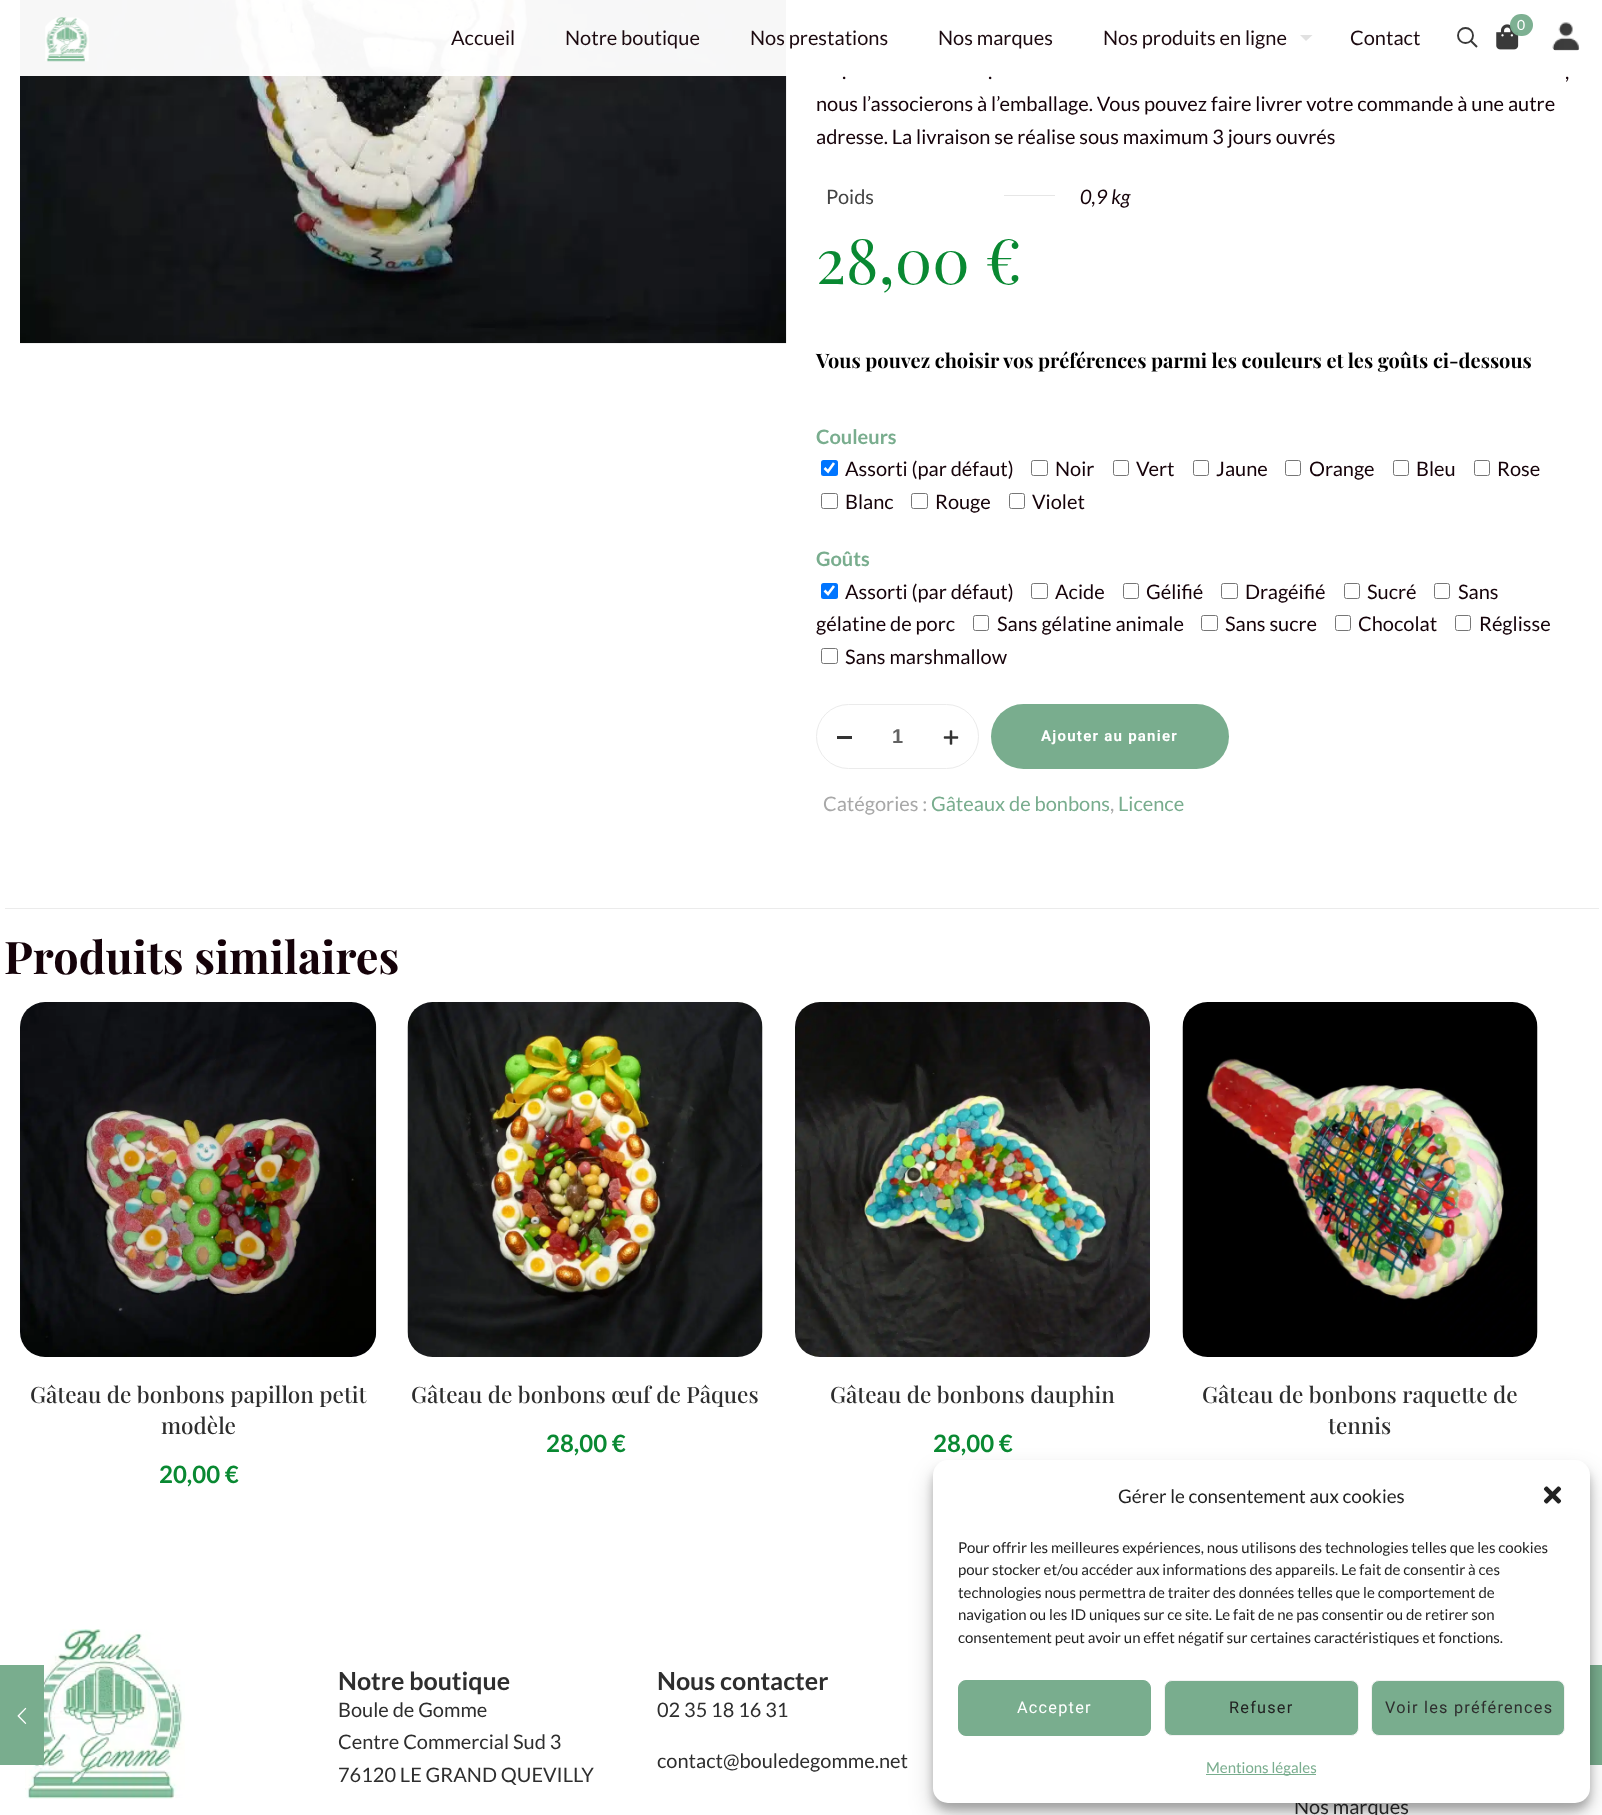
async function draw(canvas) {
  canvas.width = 1602
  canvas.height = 1815
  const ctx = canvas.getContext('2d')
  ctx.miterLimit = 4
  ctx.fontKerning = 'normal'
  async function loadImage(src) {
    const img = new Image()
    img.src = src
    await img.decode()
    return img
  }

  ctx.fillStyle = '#fff'
  ctx.fillRect(0, 0, 1602, 1815)
  ctx.drawImage(await loadImage('image3.png'), 20, 0, 767, 344)
  ctx.fillStyle = '#fffffff7'
  ctx.fillRect(20, 0, 767, 76)
  ctx.beginPath()
  ctx.arc(1465.5, 35.5, 7.5, 0, 2 * Math.PI)
  ctx.strokeStyle = '#333333f7'
  ctx.lineWidth = 1.9
  ctx.stroke()
  ctx.beginPath()
  ctx.moveTo(1470.5, 40.5)
  ctx.lineTo(1477, 47)
  ctx.stroke()
  ctx.drawImage(await loadImage('image0.png'), 1496, 24, 23, 26)
  ctx.fillStyle = '#79ad8ef7'
  ctx.beginPath()
  ctx.roundRect(1510, 14, 23, 22, 11)
  ctx.fill()
  ctx.font = '14px Lato'
  ctx.fillStyle = '#fff'
  ctx.fillText('0', 1517, 30)
  ctx.drawImage(await loadImage('image1.png'), 1552, 22, 28, 29)
  ctx.drawImage(await loadImage('image2.png'), 45, 17, 44, 45)
  ctx.font = '20px Lato'
  ctx.fillStyle = '#1c0a10'
  ctx.fillText('Accueil', 451, 45)
  ctx.fillText('Notre boutique', 565, 45)
  ctx.fillText('Nos prestations', 750, 45)
  ctx.fillText('Nos marques', 938, 45)
  ctx.fillText('Nos produits en ligne', 1103, 45)
  ctx.fillStyle = '#cccccc94'
  ctx.beginPath()
  ctx.moveTo(1300, 35)
  ctx.lineTo(1312.5, 35)
  ctx.lineTo(1306, 41)
  ctx.closePath()
  ctx.fill()
  ctx.fillStyle = '#1c0a10'
  ctx.fillText('Contact', 1350, 45)
  ctx.fillStyle = '#150209'
  ctx.fillText('.', 842, 79)
  ctx.fillText('.', 988, 79)
  ctx.fillText(',', 1565, 79)
  ctx.fillText('nous l’associerons à l’emballage. Vous pouvez faire livrer votre commande à une autre', 816, 111)
  ctx.fillText('adresse. La livraison se réalise sous maximum 3 jours ouvrés', 816, 144)
  ctx.fillStyle = '#444'
  ctx.fillText('Poids', 826, 204)
  ctx.fillStyle = '#e6e6e6'
  ctx.fillRect(1004, 195, 51, 1)
  ctx.font = 'italic 20px Lato'
  ctx.fillStyle = '#150209'
  ctx.fillText('0,9 kg', 1080, 204)
  ctx.font = '62.5px Playfair Display'
  ctx.fillStyle = '#098932'
  ctx.fillText('28,00 €', 816, 284)
  ctx.font = 'bold 20px Playfair Display'
  ctx.fillStyle = '#000'
  ctx.fillText('Vous pouvez choisir vos préférences parmi les couleurs et les goûts ci-dessous', 816, 368)
  ctx.font = 'bold 20px Lato'
  ctx.fillStyle = '#79ad8e'
  ctx.fillText('Couleurs', 816, 444)
  ctx.fillStyle = '#0075ff'
  ctx.beginPath()
  ctx.roundRect(821, 460, 17, 16, 2.5)
  ctx.fill()
  ctx.beginPath()
  ctx.moveTo(824.5, 468)
  ctx.lineTo(828, 471.5)
  ctx.lineTo(834, 463)
  ctx.strokeStyle = '#fff'
  ctx.lineWidth = 2.6
  ctx.stroke()
  ctx.font = '20px Lato'
  ctx.fillStyle = '#150209'
  ctx.fillText('Assorti (par défaut)', 845, 476)
  ctx.beginPath()
  ctx.roundRect(1031.5, 460.5, 16, 15, 2)
  ctx.strokeStyle = '#767676'
  ctx.lineWidth = 1
  ctx.stroke()
  ctx.fillText('Noir', 1055, 476)
  ctx.beginPath()
  ctx.roundRect(1113.5, 460.5, 15, 15, 2)
  ctx.stroke()
  ctx.fillText('Vert', 1136, 476)
  ctx.beginPath()
  ctx.roundRect(1193.5, 460.5, 15, 15, 2)
  ctx.stroke()
  ctx.fillText('Jaune', 1216, 476)
  ctx.beginPath()
  ctx.roundRect(1285.5, 460.5, 15, 15, 2)
  ctx.stroke()
  ctx.fillText('Orange', 1309, 476)
  ctx.beginPath()
  ctx.roundRect(1393.5, 460.5, 15, 15, 2)
  ctx.stroke()
  ctx.fillText('Bleu', 1416, 476)
  ctx.beginPath()
  ctx.roundRect(1474.5, 460.5, 15, 15, 2)
  ctx.stroke()
  ctx.fillText('Rose', 1497, 476)
  ctx.beginPath()
  ctx.roundRect(821.5, 493.5, 16, 15, 2)
  ctx.stroke()
  ctx.fillText('Blanc', 845, 509)
  ctx.beginPath()
  ctx.roundRect(911.5, 493.5, 16, 15, 2)
  ctx.stroke()
  ctx.fillText('Rouge', 935, 509)
  ctx.beginPath()
  ctx.roundRect(1009.5, 493.5, 15, 15, 2)
  ctx.stroke()
  ctx.fillText('Violet', 1032, 509)
  ctx.font = 'bold 20px Lato'
  ctx.fillStyle = '#79ad8e'
  ctx.fillText('Goûts', 816, 566)
  ctx.fillStyle = '#0075ff'
  ctx.beginPath()
  ctx.roundRect(821, 583, 17, 16, 2.5)
  ctx.fill()
  ctx.beginPath()
  ctx.moveTo(824.5, 590.5)
  ctx.lineTo(828, 594)
  ctx.lineTo(834, 586)
  ctx.strokeStyle = '#fff'
  ctx.lineWidth = 2.6
  ctx.stroke()
  ctx.font = '20px Lato'
  ctx.fillStyle = '#150209'
  ctx.fillText('Assorti (par défaut)', 845, 599)
  ctx.beginPath()
  ctx.roundRect(1434.5, 583.5, 15, 15, 2)
  ctx.strokeStyle = '#767676'
  ctx.lineWidth = 1
  ctx.stroke()
  ctx.fillText('Sans', 1458, 599)
  ctx.fillText('gélatine de porc', 816, 631)
  ctx.beginPath()
  ctx.roundRect(1031.5, 583.5, 16, 15, 2)
  ctx.stroke()
  ctx.fillText('Acide', 1055, 599)
  ctx.beginPath()
  ctx.roundRect(1123.5, 583.5, 15, 15, 2)
  ctx.stroke()
  ctx.fillText('Gélifié', 1146, 599)
  ctx.beginPath()
  ctx.roundRect(1221.5, 583.5, 16, 15, 2)
  ctx.stroke()
  ctx.fillText('Dragéifié', 1245, 599)
  ctx.beginPath()
  ctx.roundRect(1344.5, 583.5, 15, 15, 2)
  ctx.stroke()
  ctx.fillText('Sucré', 1367, 599)
  ctx.beginPath()
  ctx.roundRect(973.5, 615.5, 15, 15, 2)
  ctx.stroke()
  ctx.fillText('Sans gélatine animale', 997, 631)
  ctx.beginPath()
  ctx.roundRect(1201.5, 615.5, 16, 15, 2)
  ctx.stroke()
  ctx.fillText('Sans sucre', 1225, 631)
  ctx.beginPath()
  ctx.roundRect(1335.5, 615.5, 15, 15, 2)
  ctx.stroke()
  ctx.fillText('Chocolat', 1358, 631)
  ctx.beginPath()
  ctx.roundRect(1455.5, 615.5, 15, 15, 2)
  ctx.stroke()
  ctx.fillText('Réglisse', 1479, 631)
  ctx.beginPath()
  ctx.roundRect(821.5, 648.5, 16, 15, 2)
  ctx.stroke()
  ctx.fillText('Sans marshmallow', 845, 664)
  ctx.beginPath()
  ctx.roundRect(816.5, 704.5, 162, 64, 32)
  ctx.strokeStyle = '#ebebeb'
  ctx.stroke()
  ctx.fillStyle = '#333'
  ctx.fillRect(837, 736, 15, 3)
  ctx.font = 'bold 20px Liberation Sans'
  ctx.fillStyle = '#626262'
  ctx.fillText('1', 892, 743)
  ctx.drawImage(await loadImage('image4.png'), 943, 730, 16, 15)
  ctx.fillStyle = '#79ad8e'
  ctx.beginPath()
  ctx.roundRect(991, 704, 238, 65, 32.5)
  ctx.fill()
  ctx.letterSpacing = '1.25px'
  ctx.font = 'bold 15px Roboto'
  ctx.fillStyle = '#fff'
  ctx.fillText('Ajouter au panier', 1041, 741)
  ctx.letterSpacing = '0px'
  ctx.font = '20px Lato'
  ctx.fillStyle = '#a8a8a8'
  ctx.fillText('Catégories :', 823, 811)
  ctx.fillStyle = '#79ad8e'
  ctx.fillText('Gâteaux de bonbons', 931, 811)
  ctx.fillStyle = '#a8a8a8'
  ctx.fillText(',', 1110, 811)
  ctx.fillStyle = '#79ad8e'
  ctx.fillText('Licence', 1118, 811)
  ctx.fillStyle = '#ebebeb'
  ctx.fillRect(5, 908, 1594, 1)
  ctx.font = 'bold 45px Playfair Display'
  ctx.fillStyle = '#150209'
  ctx.fillText('Produits similaires', 4, 974)
  ctx.drawImage(await loadImage('image5.png'), 20, 1002, 357, 355)
  ctx.font = '500 22.5px Playfair Display'
  ctx.fillStyle = '#2e2e2e'
  ctx.fillText('Gâteau de bonbons papillon petit', 30, 1403)
  ctx.fillText('modèle', 161, 1434)
  ctx.font = 'bold 24px Lato'
  ctx.fillStyle = '#098932'
  ctx.fillText('20,00 €', 159, 1483)
  ctx.drawImage(await loadImage('image6.png'), 407, 1002, 356, 355)
  ctx.font = '500 22.5px Playfair Display'
  ctx.fillStyle = '#2e2e2e'
  ctx.fillText('Gâteau de bonbons œuf de Pâques', 411, 1403)
  ctx.font = 'bold 24px Lato'
  ctx.fillStyle = '#098932'
  ctx.fillText('28,00 €', 546, 1452)
  ctx.drawImage(await loadImage('image7.png'), 795, 1002, 355, 355)
  ctx.font = '500 22.5px Playfair Display'
  ctx.fillStyle = '#2e2e2e'
  ctx.fillText('Gâteau de bonbons dauphin', 830, 1403)
  ctx.font = 'bold 24px Lato'
  ctx.fillStyle = '#098932'
  ctx.fillText('28,00 €', 933, 1452)
  ctx.drawImage(await loadImage('image8.png'), 1182, 1002, 356, 355)
  ctx.font = '500 22.5px Playfair Display'
  ctx.fillStyle = '#2e2e2e'
  ctx.fillText('Gâteau de bonbons raquette de', 1202, 1403)
  ctx.fillText('tennis', 1328, 1434)
  ctx.drawImage(await loadImage('image9.png'), 25, 1629, 160, 170)
  ctx.font = 'bold 25px Lato'
  ctx.fillText('Notre boutique', 338, 1690)
  ctx.font = '20px Lato'
  ctx.fillText('Boule de Gomme', 338, 1717)
  ctx.fillText('Centre Commercial Sud 3', 338, 1749)
  ctx.fillText('76120 LE GRAND QUEVILLY', 338, 1782)
  ctx.font = 'bold 25px Lato'
  ctx.fillText('Nous contacter', 657, 1690)
  ctx.font = '20px Lato'
  ctx.fillText('02 35 18 16 31', 657, 1717)
  ctx.fillText('contact@bouledegomme.net', 657, 1768)
  ctx.fillText('Nos marques', 1294, 1814)
  ctx.fillStyle = '#79ad8e'
  ctx.fillRect(0, 1665, 44, 100)
  ctx.drawImage(await loadImage('image10.png'), 17, 1707, 10, 17)
  ctx.fillRect(1590, 1665, 12, 100)
  ctx.fillStyle = '#0000003b'
  ctx.filter = 'blur(4px)'
  ctx.beginPath()
  ctx.roundRect(933, 1468, 657, 342, 15)
  ctx.fill()
  ctx.filter = 'none'
  ctx.fillStyle = '#00000030'
  ctx.filter = 'blur(12.5px)'
  ctx.beginPath()
  ctx.roundRect(933, 1473, 657, 342, 15)
  ctx.fill()
  ctx.filter = 'none'
  ctx.fillStyle = '#fff'
  ctx.beginPath()
  ctx.roundRect(933, 1460, 657, 343, 15)
  ctx.fill()
  ctx.font = '18.75px Lato'
  ctx.fillStyle = '#222'
  ctx.fillText('Gérer le consentement aux cookies', 1118, 1503)
  ctx.drawImage(await loadImage('image11.png'), 1543, 1486, 19, 18)
  ctx.font = '15px Lato'
  ctx.fillText('Pour offrir les meilleures expériences, nous utilisons des technologies telles que les cookies', 958, 1553)
  ctx.fillText('pour stocker et/ou accéder aux informations des appareils. Le fait de consentir à ces', 958, 1575)
  ctx.fillText('technologies nous permettra de traiter des données telles que le comportement de', 958, 1598)
  ctx.fillText('navigation ou les ID uniques sur ce site. Le fait de ne pas consentir ou de retirer son', 958, 1620)
  ctx.fillText('consentement peut avoir un effet négatif sur certaines caractéristiques et fonctions.', 958, 1643)
  ctx.fillStyle = '#79ad8e'
  ctx.beginPath()
  ctx.roundRect(958.5, 1680.5, 192, 55, 7.5)
  ctx.fill()
  ctx.strokeStyle = '#79ad8e'
  ctx.stroke()
  ctx.letterSpacing = '1.25px'
  ctx.font = '16.25px Roboto'
  ctx.fillStyle = '#fff'
  ctx.fillText('Accepter', 1017, 1713)
  ctx.fillStyle = '#79ad8e'
  ctx.beginPath()
  ctx.roundRect(1164.5, 1680.5, 194, 55, 7.5)
  ctx.fill()
  ctx.strokeStyle = '#f2f2f2'
  ctx.stroke()
  ctx.fillStyle = '#222'
  ctx.fillText('Refuser', 1229, 1713)
  ctx.fillStyle = '#79ad8e'
  ctx.beginPath()
  ctx.roundRect(1371.5, 1680.5, 193, 55, 7.5)
  ctx.fill()
  ctx.stroke()
  ctx.fillStyle = '#2e2e2e'
  ctx.fillText('Voir les préférences', 1385, 1713)
  ctx.fillStyle = '#79ad8e'
  ctx.fillRect(1206, 1774, 110, 1)
  ctx.letterSpacing = '0px'
  ctx.font = '15px Lato'
  ctx.fillText('Mentions légales', 1206, 1773)
}

draw(document.querySelector('canvas'))
